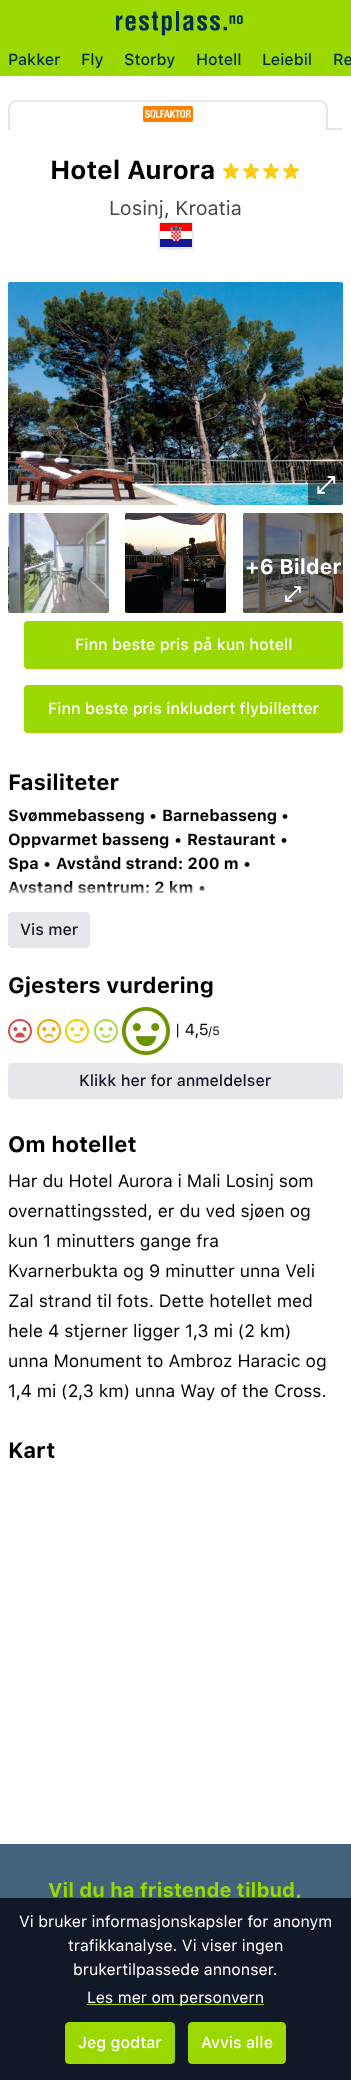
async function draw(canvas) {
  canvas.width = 351
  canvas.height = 2080
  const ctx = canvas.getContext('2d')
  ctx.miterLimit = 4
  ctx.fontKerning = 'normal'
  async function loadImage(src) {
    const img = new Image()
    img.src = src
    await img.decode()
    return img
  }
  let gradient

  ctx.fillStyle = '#fff'
  ctx.fillRect(0, 0, 351, 2080)
  ctx.fillStyle = '#9ad800'
  ctx.fillRect(0, 0, 351, 76)
  ctx.drawImage(await loadImage('image0.png'), 116, 11, 127, 25)
  ctx.font = '500 16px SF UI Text'
  ctx.fillStyle = '#032f4e'
  ctx.fillText('Pakker', 8, 65)
  ctx.fillText('Fly', 81, 65)
  ctx.fillText('Storby', 124, 65)
  ctx.fillText('Hotell', 196, 65)
  ctx.fillText('Leiebil', 262, 65)
  ctx.fillText('Re', 333, 65)
  ctx.fillStyle = '#e5e7eb'
  ctx.beginPath()
  ctx.moveTo(16, 100)
  ctx.lineTo(320, 100)
  ctx.bezierCurveTo(324, 100, 328, 104, 328, 108)
  ctx.lineTo(328, 130)
  ctx.lineTo(8, 130)
  ctx.lineTo(8, 108)
  ctx.bezierCurveTo(8, 104, 12, 100, 16, 100)
  ctx.closePath()
  ctx.moveTo(16, 102)
  ctx.lineTo(320, 102)
  ctx.bezierCurveTo(323, 102, 326, 105, 326, 108)
  ctx.lineTo(326, 130)
  ctx.lineTo(10, 130)
  ctx.lineTo(10, 108)
  ctx.bezierCurveTo(10, 105, 13, 102, 16, 102)
  ctx.closePath()
  ctx.fill('evenodd')
  ctx.drawImage(await loadImage('image1.png'), 143, 106, 50, 16)
  ctx.fillRect(328, 128, 15, 2)
  ctx.font = 'bold 26px SF UI Text'
  ctx.fillStyle = '#000'
  ctx.fillText('Hotel Aurora', 50, 179)
  ctx.drawImage(await loadImage('image2.png'), 223, 163, 16, 16)
  ctx.drawImage(await loadImage('image2.png'), 243, 163, 16, 16)
  ctx.drawImage(await loadImage('image2.png'), 263, 163, 16, 16)
  ctx.drawImage(await loadImage('image2.png'), 283, 163, 16, 16)
  ctx.font = '20px SF UI Text'
  ctx.fillStyle = '#484848'
  ctx.fillText('Losinj, Kroatia', 109, 215)
  ctx.fillStyle = '#0000001a'
  ctx.filter = 'blur(1px)'
  ctx.beginPath()
  ctx.rect(160, 224, 32, 24)
  ctx.fill()
  ctx.filter = 'none'
  ctx.filter = 'blur(1.5px)'
  ctx.beginPath()
  ctx.rect(159, 223, 34, 26)
  ctx.fill()
  ctx.filter = 'none'
  ctx.strokeStyle = '#e5e7eb'
  ctx.strokeRect(159.5, 222.5, 33, 25)
  ctx.drawImage(await loadImage('image3.png'), 160, 223, 32, 24)
  ctx.drawImage(await loadImage('image4.png'), 8, 282, 335, 223)
  ctx.fillStyle = '#00000080'
  ctx.beginPath()
  ctx.roundRect(308, 465, 35, 40, 2)
  ctx.fill()
  ctx.font = 'bold 24px FreeSerif'
  ctx.fillStyle = '#fff'
  ctx.fillText('⤢', 316, 493)
  ctx.drawImage(await loadImage('image5.png'), 8, 513, 101, 100)
  ctx.drawImage(await loadImage('image6.png'), 125, 513, 101, 100)
  ctx.drawImage(await loadImage('image7.png'), 243, 513, 100, 100)
  ctx.fillStyle = '#00000073'
  ctx.beginPath()
  ctx.roundRect(243, 513, 100, 100, 2)
  ctx.fill()
  ctx.font = 'bold 21px SF UI Text'
  ctx.fillStyle = '#fff'
  ctx.fillText('+6 Bilder', 245, 574)
  ctx.font = 'bold 21px FreeSerif'
  ctx.fillText('⤢', 284, 601)
  ctx.fillStyle = '#9ad800'
  ctx.beginPath()
  ctx.roundRect(24, 621, 319, 48, 4)
  ctx.fill()
  ctx.font = '500 16px SF UI Text'
  ctx.fillStyle = '#fff'
  ctx.fillText('Finn beste pris på kun hotell', 75, 650)
  ctx.fillStyle = '#9ad800'
  ctx.beginPath()
  ctx.roundRect(24, 685, 319, 48, 4)
  ctx.fill()
  ctx.fillStyle = '#fff'
  ctx.fillText('Finn beste pris inkludert flybilletter', 48, 714)
  ctx.font = 'bold 22px SF UI Text'
  ctx.fillStyle = '#000'
  ctx.fillText('Fasiliteter', 8, 790)
  ctx.font = 'bold 16px SF UI Text'
  ctx.fillText('Svømmebasseng', 8, 821)
  ctx.font = '16px SF UI Text'
  ctx.fillText('•', 149, 821)
  ctx.font = 'bold 16px SF UI Text'
  ctx.fillText('Barnebasseng', 162, 821)
  ctx.font = '16px SF UI Text'
  ctx.fillText('•', 281, 821)
  ctx.font = 'bold 16px SF UI Text'
  ctx.fillText('Oppvarmet basseng', 8, 845)
  ctx.font = '16px SF UI Text'
  ctx.fillText('•', 174, 845)
  ctx.font = 'bold 16px SF UI Text'
  ctx.fillText('Restaurant', 187, 845)
  ctx.font = '16px SF UI Text'
  ctx.fillText('•', 280, 845)
  ctx.font = 'bold 16px SF UI Text'
  ctx.fillText('Spa', 8, 869)
  ctx.font = '16px SF UI Text'
  ctx.fillText('•', 43, 869)
  ctx.font = 'bold 16px SF UI Text'
  ctx.fillText('Avstånd strand: 200 m', 56, 869)
  ctx.font = '16px SF UI Text'
  ctx.fillText('•', 243, 869)
  ctx.font = 'bold 16px SF UI Text'
  ctx.fillText('Avstand sentrum: 2 km', 8, 893)
  ctx.font = '16px SF UI Text'
  ctx.fillText('•', 198, 893)
  gradient = ctx.createLinearGradient(176, 884, 176, 904)
  gradient.addColorStop(0, '#ffffff00')
  gradient.addColorStop(0.7, '#fff')
  ctx.fillStyle = gradient
  ctx.fillRect(8, 884, 197, 10)
  ctx.fillStyle = '#e5e7eb'
  ctx.beginPath()
  ctx.roundRect(8, 912, 82, 36, 4)
  ctx.fill()
  ctx.font = '500 16px SF UI Text'
  ctx.fillStyle = '#111827'
  ctx.fillText('Vis mer', 20, 935)
  ctx.font = 'bold 22px SF UI Text'
  ctx.fillStyle = '#000'
  ctx.fillText('Gjesters vurdering', 8, 993)
  ctx.drawImage(await loadImage('image8.png'), 8, 1019, 24, 24)
  ctx.drawImage(await loadImage('image9.png'), 37, 1019, 24, 24)
  ctx.drawImage(await loadImage('image10.png'), 65, 1019, 24, 24)
  ctx.drawImage(await loadImage('image11.png'), 94, 1019, 24, 24)
  ctx.drawImage(await loadImage('image12.png'), 122, 1007, 48, 48)
  ctx.font = '16px SF UI Text'
  ctx.fillText('| 4,5', 175, 1035)
  ctx.font = '12px SF UI Text'
  ctx.fillText('/5', 208, 1035)
  ctx.fillStyle = '#e5e7eb'
  ctx.beginPath()
  ctx.roundRect(8, 1063, 335, 36, 4)
  ctx.fill()
  ctx.font = '500 16px SF UI Text'
  ctx.fillStyle = '#111827'
  ctx.fillText('Klikk her for anmeldelser', 79, 1086)
  ctx.font = 'bold 22px SF UI Text'
  ctx.fillStyle = '#000'
  ctx.fillText('Om hotellet', 8, 1152)
  ctx.font = '17.6px SF UI Text'
  ctx.fillText('Har du Hotel Aurora i Mali Losinj som', 8, 1187)
  ctx.fillText('overnattingssted, er du ved sjøen og', 8, 1217)
  ctx.fillText('kun 1 minutters gange fra', 8, 1247)
  ctx.fillText('Kvarnerbukta og 9 minutter unna Veli', 8, 1277)
  ctx.fillText('Zal strand til fots. Dette hotellet med', 8, 1307)
  ctx.fillText('hele 4 stjerner ligger 1,3 mi (2 km)', 8, 1337)
  ctx.fillText('unna Monument to Ambroz Haracic og', 8, 1367)
  ctx.fillText('1,4 mi (2,3 km) unna Way of the Cross.', 8, 1397)
  ctx.font = 'bold 22px SF UI Text'
  ctx.fillText('Kart', 8, 1458)
  ctx.fillStyle = '#42637b'
  ctx.fillRect(0, 1844, 351, 54)
  ctx.font = 'bold 20px SF UI Text'
  ctx.fillStyle = '#9ad800'
  ctx.fillText('Vil du ha fristende tilbud,', 48, 1897)
  ctx.fillStyle = '#111827'
  ctx.fillRect(0, 1898, 351, 182)
  ctx.font = '16px SF UI Text'
  ctx.fillStyle = '#fff'
  ctx.fillText('Vi bruker informasjonskapsler for anonym', 19, 1927)
  ctx.fillText('trafikkanalyse. Vi viser ingen', 68, 1951)
  ctx.fillText('brukertilpassede annonser.', 73, 1975)
  ctx.fillStyle = '#9ad800'
  ctx.fillRect(87, 2004, 177, 1)
  ctx.fillStyle = '#fff'
  ctx.fillText('Les mer om personvern', 87, 2003)
  ctx.fillStyle = '#9ad800'
  ctx.beginPath()
  ctx.roundRect(65.5, 2022.5, 109, 41, 3.5)
  ctx.fill()
  ctx.strokeStyle = '#9ad800'
  ctx.stroke()
  ctx.font = '500 16px SF UI Text'
  ctx.fillStyle = '#fff'
  ctx.fillText('Jeg godtar', 78, 2048)
  ctx.fillStyle = '#9ad800'
  ctx.beginPath()
  ctx.roundRect(188.5, 2022.5, 97, 41, 3.5)
  ctx.fill()
  ctx.stroke()
  ctx.fillStyle = '#fff'
  ctx.fillText('Avvis alle', 201, 2048)
}

draw(document.querySelector('canvas'))
